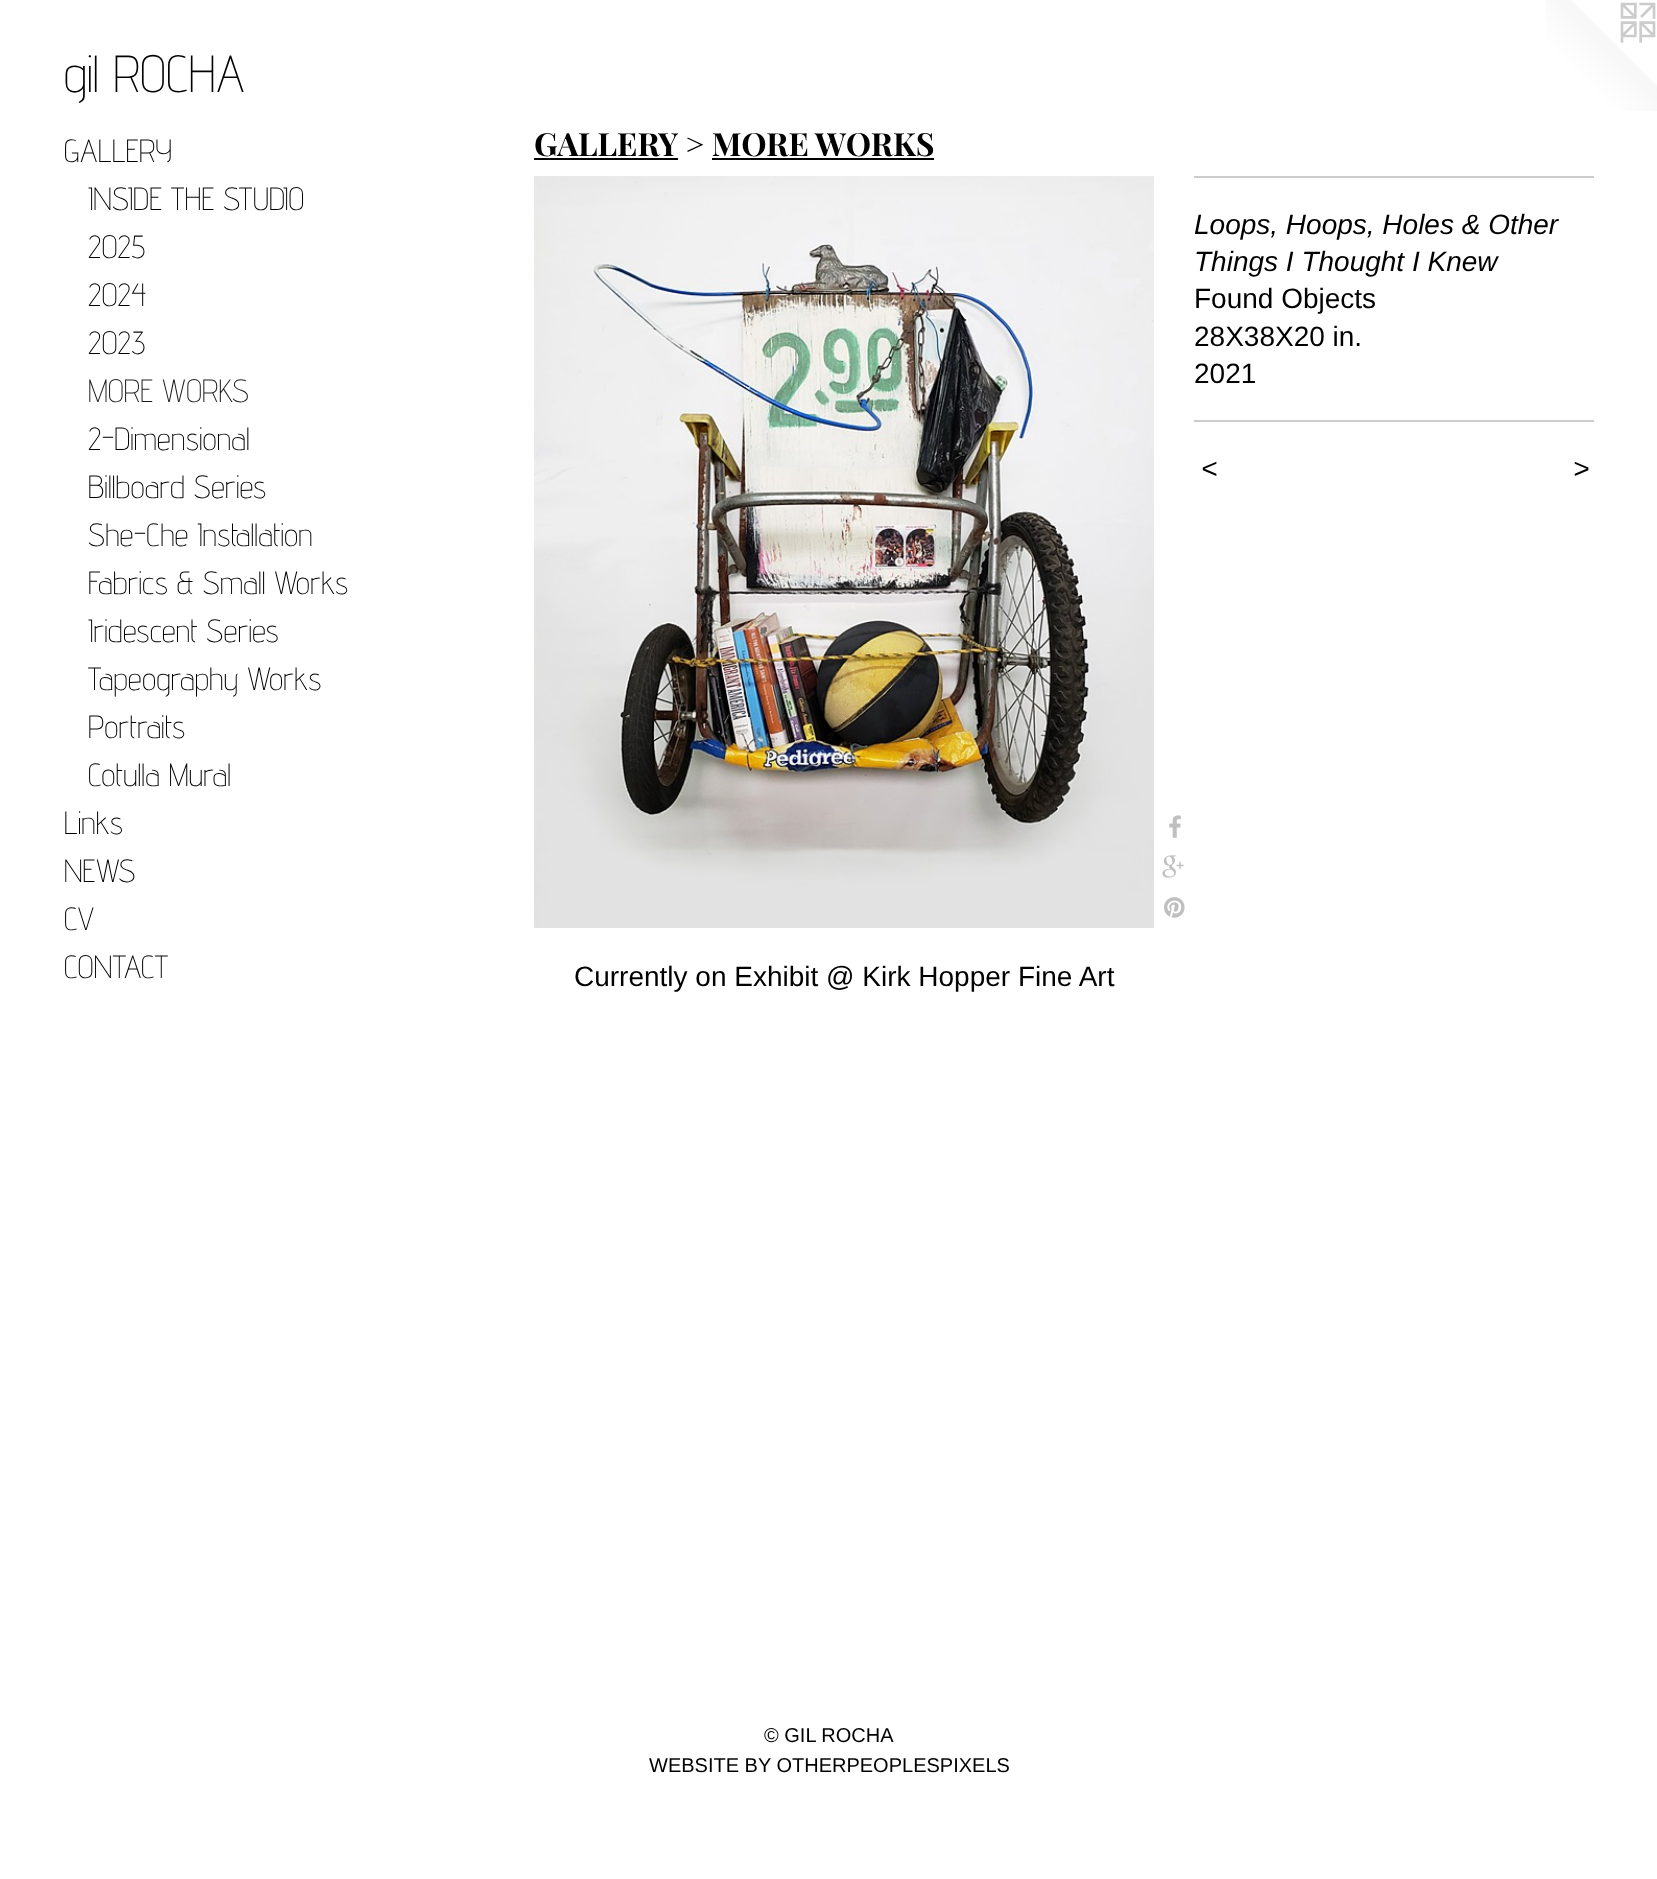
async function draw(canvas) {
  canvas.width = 1657
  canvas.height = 1879
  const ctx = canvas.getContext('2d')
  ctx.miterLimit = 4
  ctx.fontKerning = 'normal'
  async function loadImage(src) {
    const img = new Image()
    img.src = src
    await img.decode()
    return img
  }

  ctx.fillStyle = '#fff'
  ctx.fillRect(0, 0, 1657, 1879)
  ctx.font = '200 52px Advent Pro'
  ctx.fillStyle = '#000'
  ctx.fillText('gil ROCHA', 64, 92)
  ctx.drawImage(await loadImage('image0.png'), 1546, 0, 111, 111)
  ctx.font = '200 32px Advent Pro'
  ctx.fillText('GALLERY', 64, 162)
  ctx.fillText('INSIDE THE STUDIO', 88, 210)
  ctx.fillText('2025', 88, 258)
  ctx.fillText('2024', 88, 306)
  ctx.fillText('2023', 88, 354)
  ctx.fillStyle = '#1a1a1a'
  ctx.fillText('MORE WORKS', 88, 402)
  ctx.fillStyle = '#000'
  ctx.fillText('2-Dimensional', 88, 450)
  ctx.fillText('Billboard Series', 88, 498)
  ctx.fillText('She-Che Installation', 88, 546)
  ctx.fillText('Fabrics & Small Works', 88, 594)
  ctx.fillText('Iridescent Series', 88, 642)
  ctx.fillText('Tapeography Works', 88, 690)
  ctx.fillText('Portraits', 88, 738)
  ctx.fillText('Cotulla Mural', 88, 786)
  ctx.fillText('Links', 64, 834)
  ctx.fillText('NEWS', 64, 882)
  ctx.fillText('CV', 64, 930)
  ctx.fillText('CONTACT', 64, 978)
  ctx.font = 'bold 32px Playfair Display'
  ctx.fillText('GALLERY', 534, 156)
  ctx.fillRect(534, 158, 144, 2)
  ctx.fillText('> MORE WORKS', 685, 156)
  ctx.fillRect(712, 158, 222, 2)
  ctx.drawImage(await loadImage('image1.png'), 534, 176, 620, 752)
  ctx.drawImage(await loadImage('image2.png'), 1169, 815, 12, 23)
  ctx.drawImage(await loadImage('image3.png'), 1162, 855, 22, 23)
  ctx.drawImage(await loadImage('image4.png'), 1164, 897, 21, 21)
  ctx.fillStyle = '#ccc'
  ctx.fillRect(1194, 176, 400, 2)
  ctx.font = 'italic 28px Liberation Sans'
  ctx.fillStyle = '#000'
  ctx.fillText('Loops, Hoops, Holes & Other', 1194, 234)
  ctx.fillText('Things I Thought I Knew', 1194, 271)
  ctx.font = '28px Liberation Sans'
  ctx.fillText('Found Objects', 1194, 308)
  ctx.fillText('28X38X20 in.', 1194, 346)
  ctx.fillText('2021', 1194, 383)
  ctx.fillStyle = '#ccc'
  ctx.fillRect(1194, 420, 400, 2)
  ctx.letterSpacing = '2px'
  ctx.font = 'italic 28px Liberation Sans'
  ctx.fillStyle = '#000'
  ctx.fillText('<', 1201, 478)
  ctx.fillText('>', 1573, 478)
  ctx.letterSpacing = '0px'
  ctx.font = '28px Liberation Sans'
  ctx.fillText('Currently on Exhibit @ Kirk Hopper Fine Art', 574, 986)
  ctx.font = '20px Liberation Sans'
  ctx.fillText('© GIL ROCHA', 764, 1742)
  ctx.fillText('WEBSITE BY OTHERPEOPLESPIXELS', 649, 1772)
}

draw(document.querySelector('canvas'))
